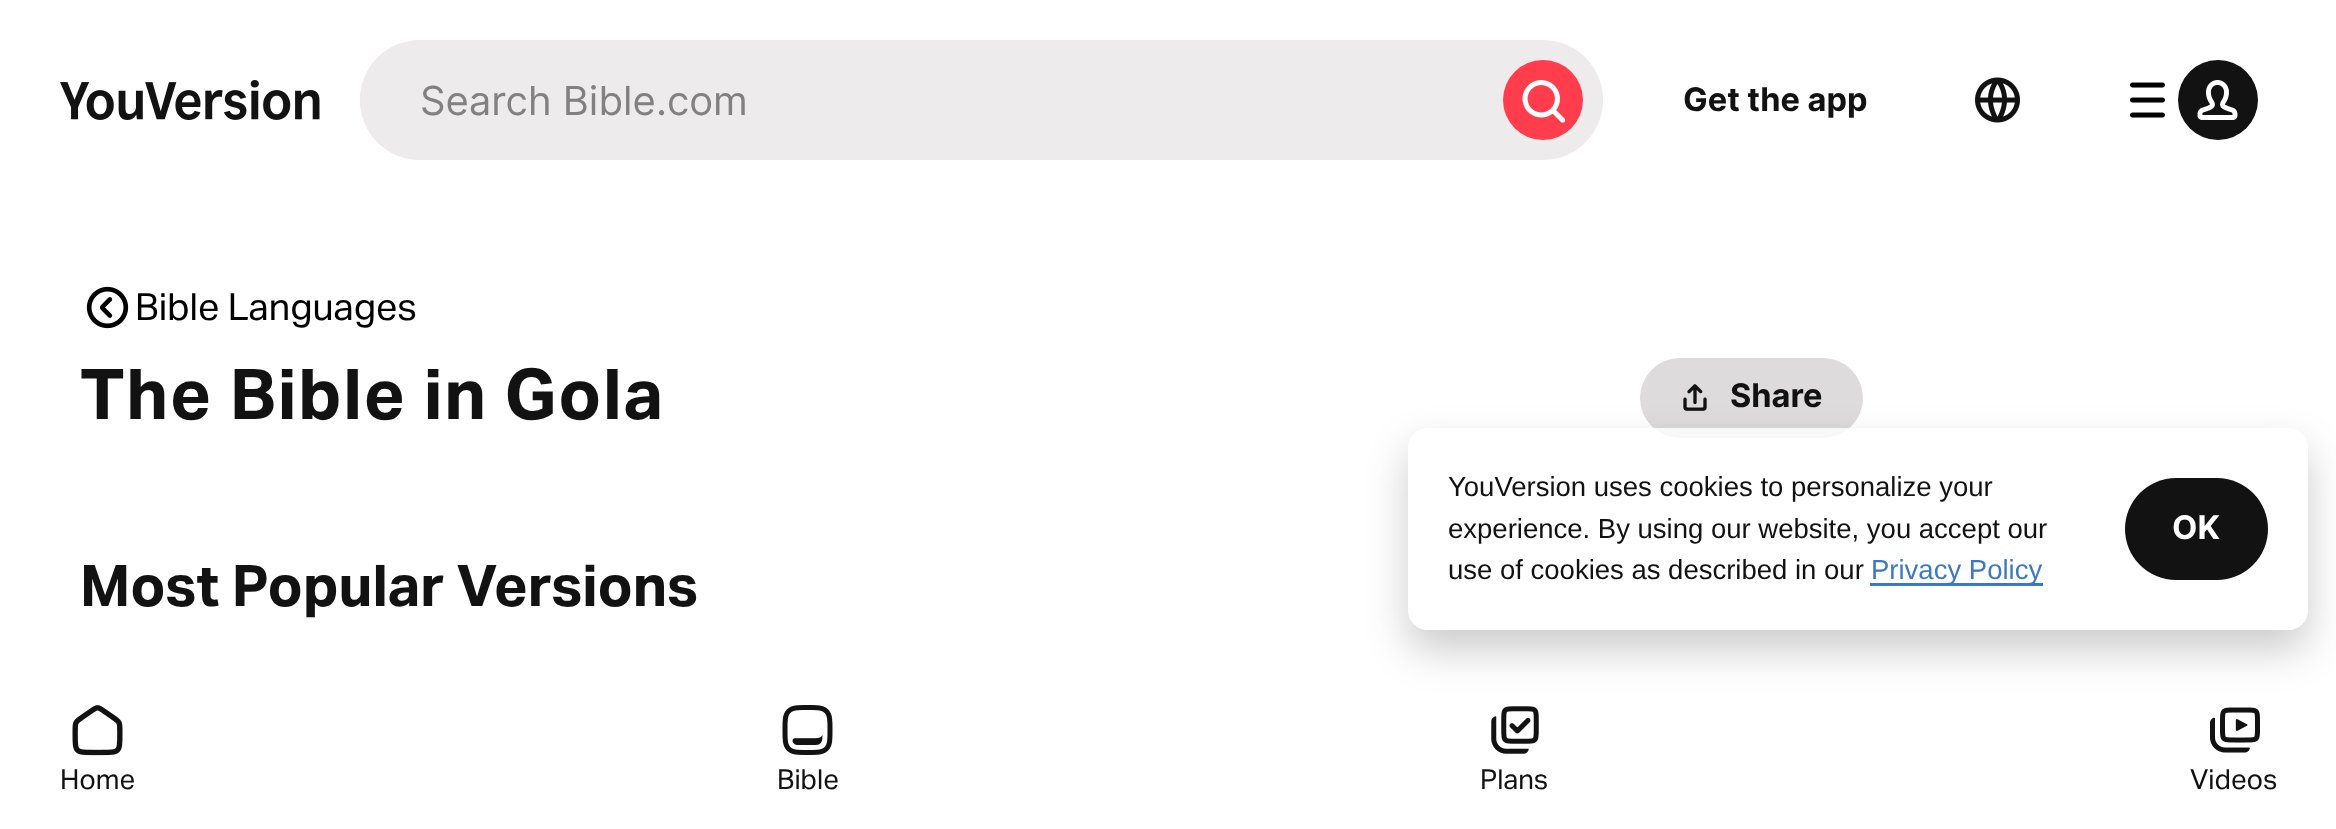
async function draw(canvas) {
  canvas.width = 2336
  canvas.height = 829
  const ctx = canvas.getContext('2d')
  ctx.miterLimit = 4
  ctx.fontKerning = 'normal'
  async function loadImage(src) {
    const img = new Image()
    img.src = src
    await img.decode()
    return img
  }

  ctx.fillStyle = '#fff'
  ctx.fillRect(0, 0, 2336, 829)
  ctx.drawImage(await loadImage('image0.png'), 60, 80, 260, 40)
  ctx.fillStyle = '#edebeb'
  ctx.beginPath()
  ctx.roundRect(360, 40, 1243, 120, 60)
  ctx.fill()
  ctx.beginPath()
  ctx.roundRect(360, 60, 1123, 80, 40)
  ctx.fill()
  ctx.font = '40px Inter'
  ctx.fillStyle = '#828080'
  ctx.fillText('Search Bible.com', 420, 115)
  ctx.fillStyle = '#ff3d4d'
  ctx.beginPath()
  ctx.arc(1543, 100, 40, 0, 2 * Math.PI)
  ctx.fill()
  ctx.drawImage(await loadImage('image1.png'), 1522, 80, 44, 43)
  ctx.font = 'bold 32.5px Inter'
  ctx.fillStyle = '#121212'
  ctx.fillText('Get the app', 1683, 111)
  ctx.drawImage(await loadImage('image2.png'), 1975, 77, 45, 46)
  ctx.drawImage(await loadImage('image3.png'), 2130, 82, 35, 36)
  ctx.beginPath()
  ctx.arc(2218, 100, 40, 0, 2 * Math.PI)
  ctx.fill()
  ctx.drawImage(await loadImage('image4.png'), 2197, 80, 41, 40)
  ctx.drawImage(await loadImage('image5.png'), 86, 286, 43, 43)
  ctx.font = '37.5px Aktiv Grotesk'
  ctx.fillStyle = '#000'
  ctx.fillText('Bible Languages', 135, 320)
  ctx.letterSpacing = '1.75px'
  ctx.font = 'bold 70px Aktiv Grotesk'
  ctx.fillStyle = '#121212'
  ctx.fillText('The Bible in Gola', 80, 419)
  ctx.fillStyle = '#dddbdb'
  ctx.beginPath()
  ctx.roundRect(1640, 358, 223, 80, 40)
  ctx.fill()
  ctx.drawImage(await loadImage('image6.png'), 1683, 384, 24, 27)
  ctx.letterSpacing = '0px'
  ctx.font = 'bold 32.5px Inter'
  ctx.fillStyle = '#121212'
  ctx.fillText('Share', 1730, 407)
  ctx.font = 'bold 57.5px Aktiv Grotesk'
  ctx.fillText('Most Popular Versions', 80, 606)
  ctx.drawImage(await loadImage('image9.png'), 1491, 706, 48, 48)
  ctx.drawImage(await loadImage('image10.png'), 2210, 707, 50, 46)
  ctx.save()
  ctx.beginPath()
  ctx.moveTo(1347, 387)
  ctx.lineTo(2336, 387)
  ctx.lineTo(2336, 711)
  ctx.lineTo(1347, 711)
  ctx.closePath()
  ctx.moveTo(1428, 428)
  ctx.lineTo(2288, 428)
  ctx.bezierCurveTo(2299, 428, 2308, 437, 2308, 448)
  ctx.lineTo(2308, 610)
  ctx.bezierCurveTo(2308, 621, 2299, 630, 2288, 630)
  ctx.lineTo(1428, 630)
  ctx.bezierCurveTo(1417, 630, 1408, 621, 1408, 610)
  ctx.lineTo(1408, 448)
  ctx.bezierCurveTo(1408, 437, 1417, 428, 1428, 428)
  ctx.closePath()
  ctx.clip('evenodd')
  ctx.fillStyle = '#00000033'
  ctx.filter = 'blur(20px)'
  ctx.beginPath()
  ctx.roundRect(1408, 448, 900, 202, 20)
  ctx.fill()
  ctx.filter = 'none'
  ctx.restore()
  ctx.fillStyle = '#ffffffcc'
  ctx.beginPath()
  ctx.roundRect(1408, 428, 900, 202, 20)
  ctx.fill()
  ctx.font = '27.5px Liberation Sans'
  ctx.fillStyle = '#121212'
  ctx.fillText('YouVersion uses cookies to personalize your', 1448, 496)
  ctx.fillText('experience. By using our website, you accept our', 1448, 538)
  ctx.fillText('use of cookies as described in our', 1448, 579)
  ctx.fillStyle = '#3d79c2'
  ctx.fillRect(1870, 583, 173, 3)
  ctx.fillText('Privacy Policy', 1871, 579)
  ctx.fillStyle = '#121212'
  ctx.beginPath()
  ctx.roundRect(2125, 478, 143, 102, 51)
  ctx.fill()
  ctx.font = 'bold 32.5px Inter'
  ctx.fillStyle = '#fff'
  ctx.fillText('OK', 2172, 539)
  ctx.drawImage(await loadImage('image7.png'), 72, 705, 51, 51)
  ctx.font = '27.5px Aktiv Grotesk'
  ctx.fillStyle = '#121212'
  ctx.fillText('Home', 60, 789)
  ctx.drawImage(await loadImage('image8.png'), 782, 705, 51, 50)
  ctx.fillText('Bible', 777, 789)
  ctx.fillText('Plans', 1480, 789)
  ctx.fillText('Videos', 2190, 789)
}

draw(document.querySelector('canvas'))
